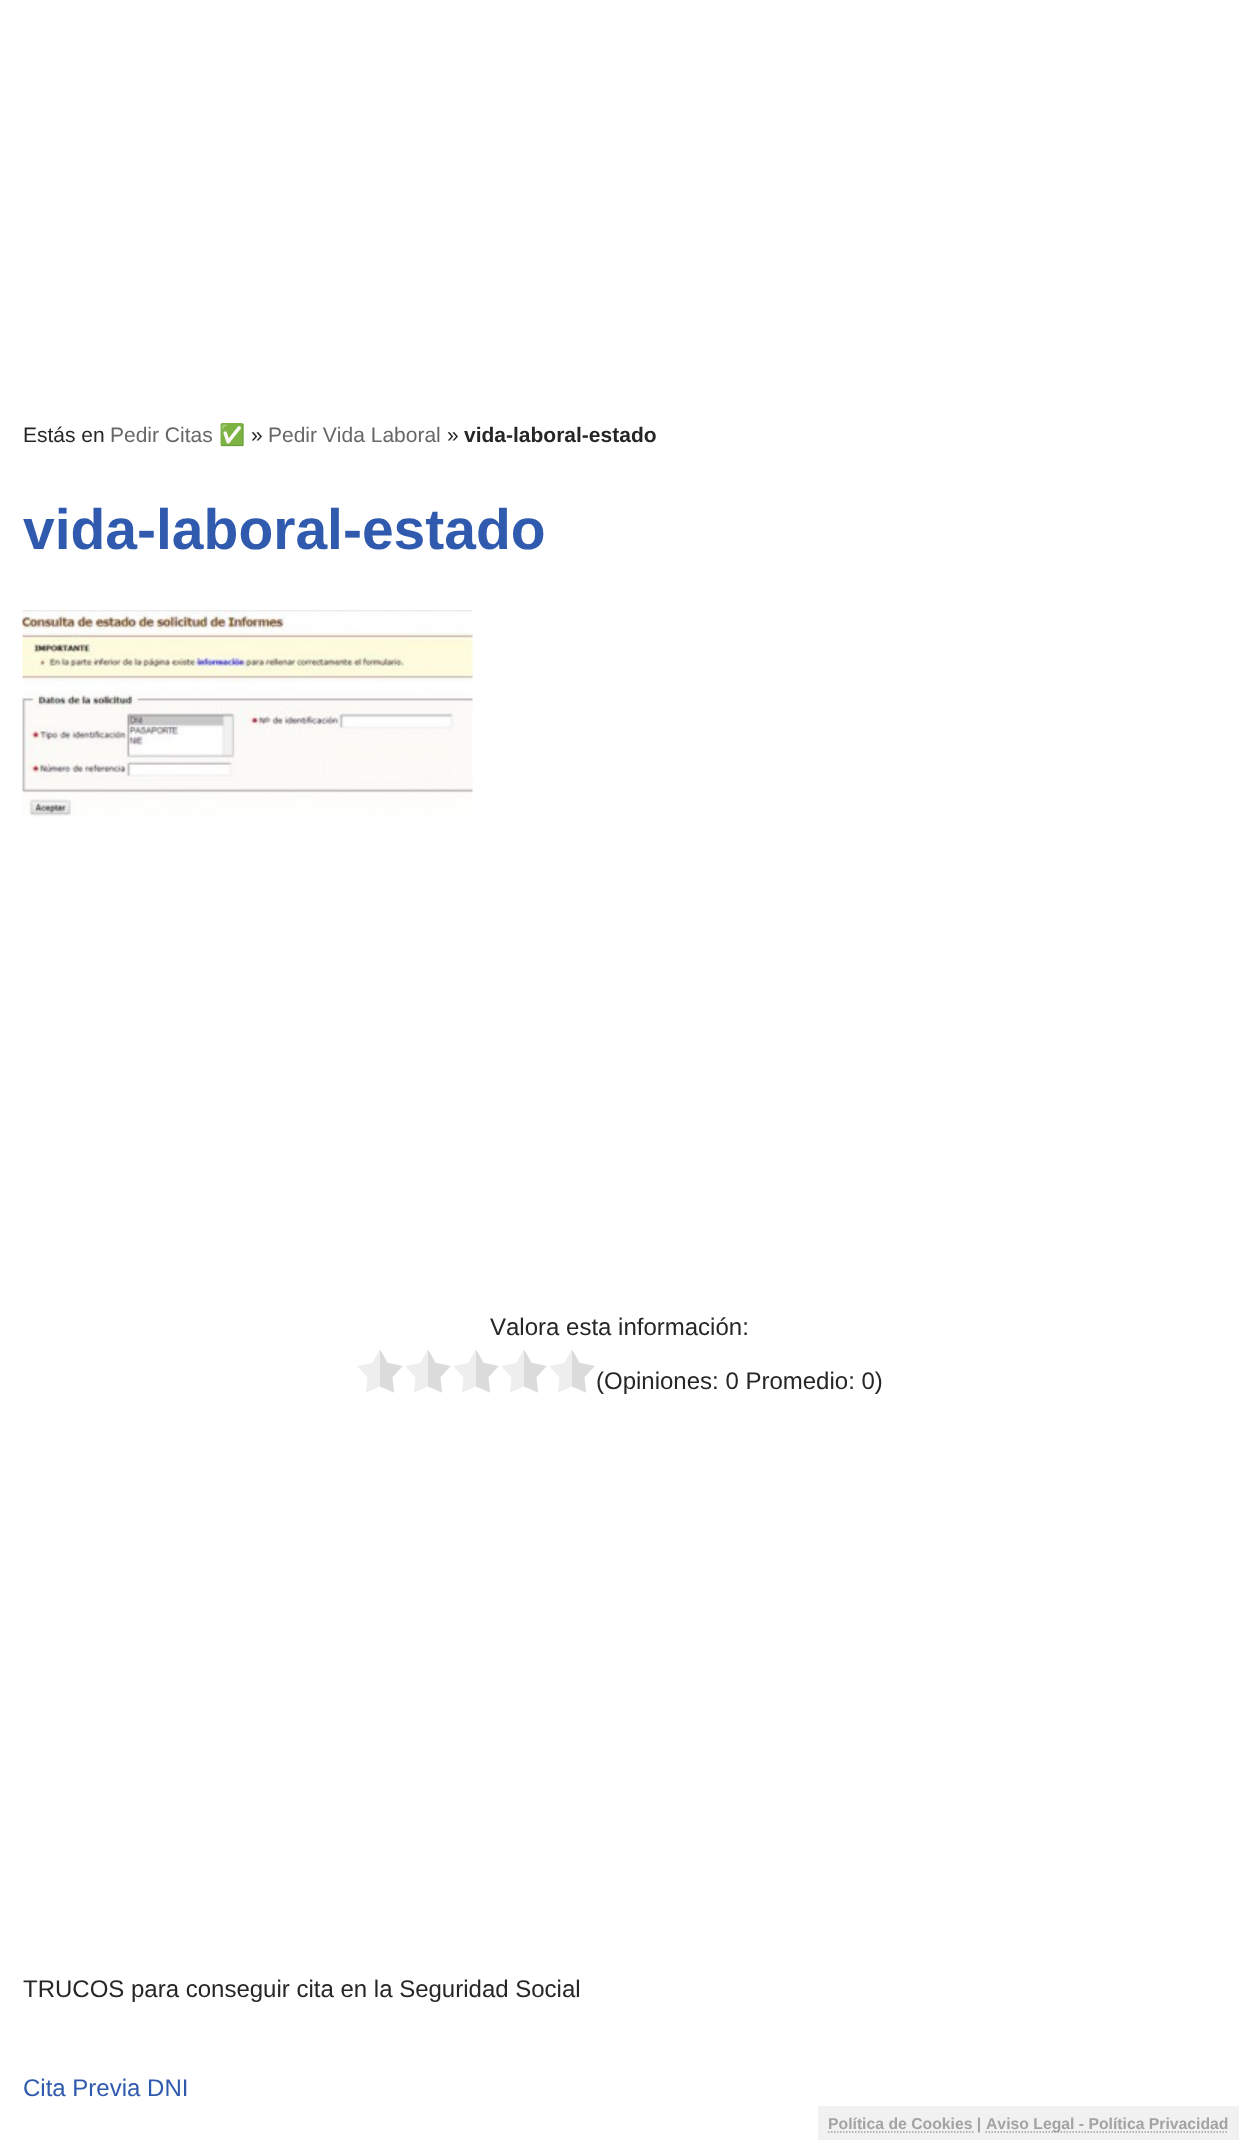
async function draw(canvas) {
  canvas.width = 1239
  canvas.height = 2140
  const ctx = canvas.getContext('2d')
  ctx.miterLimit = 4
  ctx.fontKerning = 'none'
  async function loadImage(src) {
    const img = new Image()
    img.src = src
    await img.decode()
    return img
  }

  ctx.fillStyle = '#fff'
  ctx.fillRect(0, 0, 1239, 2140)
  ctx.font = '21px Liberation Sans'
  ctx.fillStyle = '#272626'
  ctx.fillText('Estás en', 23, 442)
  ctx.fillStyle = '#676767'
  ctx.fillText('Pedir Citas', 110, 442)
  ctx.font = '21px Noto Color Emoji'
  ctx.fillText('✅', 219, 442)
  ctx.font = '21px Liberation Sans'
  ctx.fillStyle = '#272626'
  ctx.fillText('»', 251, 442)
  ctx.fillStyle = '#676767'
  ctx.fillText('Pedir Vida Laboral', 268, 442)
  ctx.fillStyle = '#272626'
  ctx.fillText('»', 447, 442)
  ctx.font = 'bold 21px Liberation Sans'
  ctx.fillText('vida-laboral-estado', 464, 442)
  ctx.font = 'bold 57px Liberation Sans'
  ctx.fillStyle = '#2f5aae'
  ctx.fillText('vida-laboral-estado', 23, 549)
  ctx.drawImage(await loadImage('image0.png'), 22, 610, 451, 207)
  ctx.font = '24px Liberation Sans'
  ctx.fillStyle = '#272626'
  ctx.fillText('Valora esta información:', 490, 1335)
  ctx.drawImage(await loadImage('image1.png'), 357, 1349, 238, 44)
  ctx.fillText('(Opiniones: 0 Promedio: 0)', 596, 1389)
  ctx.fillText('TRUCOS para conseguir cita en la Seguridad Social', 23, 1997)
  ctx.fillStyle = '#2f5aae'
  ctx.fillText('Cita Previa DNI', 23, 2096)
  ctx.fillStyle = '#f1f1f1'
  ctx.fillRect(818, 2106, 421, 34)
  ctx.beginPath()
  ctx.moveTo(828, 2132)
  ctx.lineTo(973.5, 2132)
  ctx.strokeStyle = '#a3a3a3'
  ctx.lineWidth = 1.5
  ctx.setLineDash([1.5, 1.5])
  ctx.stroke()
  ctx.font = 'bold 15.75px Liberation Sans'
  ctx.fillStyle = '#a3a3a3'
  ctx.fillText('Política de Cookies |', 828, 2129)
  ctx.beginPath()
  ctx.moveTo(985.5, 2132)
  ctx.lineTo(1228.5, 2132)
  ctx.stroke()
  ctx.fillText('Aviso Legal - Política Privacidad', 986, 2129)
}

draw(document.querySelector('canvas'))
